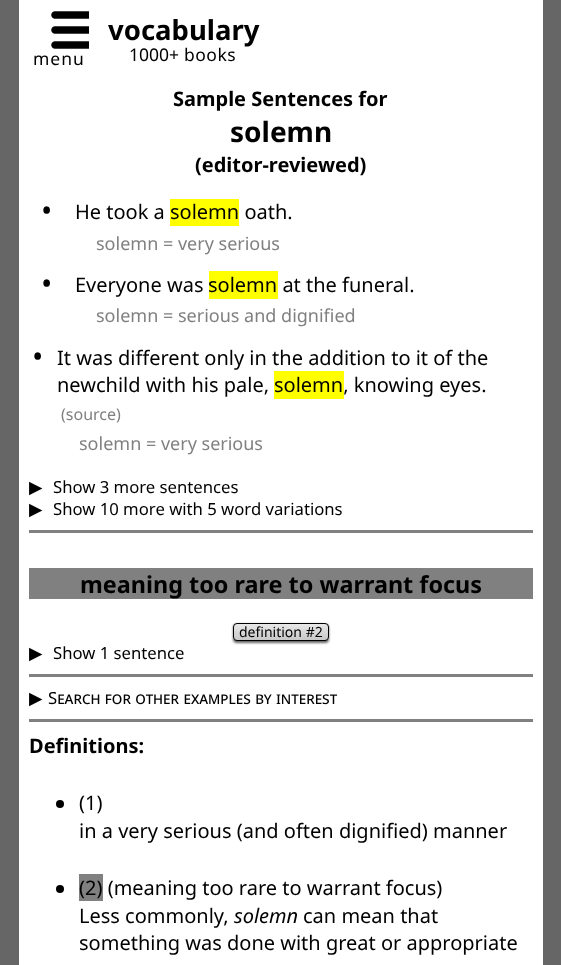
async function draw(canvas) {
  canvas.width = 561
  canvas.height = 965
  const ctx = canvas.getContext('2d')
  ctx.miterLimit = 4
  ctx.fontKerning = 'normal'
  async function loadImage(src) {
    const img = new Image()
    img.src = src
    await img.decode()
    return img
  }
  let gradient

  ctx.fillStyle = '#666'
  ctx.fillRect(0, 0, 561, 965)
  ctx.fillStyle = '#fff'
  ctx.fillRect(19, 0, 524, 965)
  ctx.drawImage(await loadImage('image0.png'), 51, 11, 38, 38)
  ctx.letterSpacing = '1px'
  ctx.font = '17.5px Noto Sans'
  ctx.fillStyle = '#000'
  ctx.fillText('menu', 33, 65)
  ctx.letterSpacing = '0px'
  ctx.font = 'bold 27.5px Noto Sans'
  ctx.fillText('vocabulary', 108, 40)
  ctx.font = '17.5px Noto Sans'
  ctx.fillText('1000+', 129, 61)
  ctx.letterSpacing = '0.5px'
  ctx.fillText('books', 184, 61)
  ctx.letterSpacing = '0px'
  ctx.font = 'bold 20px Noto Sans'
  ctx.fillText('Sample Sentences for', 173, 106)
  ctx.font = 'bold 28px Noto Sans'
  ctx.fillText('solemn', 230, 142)
  ctx.font = 'bold 20px Noto Sans'
  ctx.fillText('(editor-reviewed)', 195, 172)
  ctx.font = '30px Noto Sans'
  ctx.fillText('•', 41, 221)
  ctx.font = '20px Noto Sans'
  ctx.fillText('He took a', 75, 219)
  ctx.fillStyle = '#ff0'
  ctx.fillRect(170, 199, 69, 27)
  ctx.fillStyle = '#000'
  ctx.fillText('solemn oath.', 170, 219)
  ctx.font = '18px Noto Sans'
  ctx.fillStyle = '#808080'
  ctx.fillText('solemn = very serious', 96, 250)
  ctx.font = '30px Noto Sans'
  ctx.fillStyle = '#000'
  ctx.fillText('•', 41, 294)
  ctx.font = '20px Noto Sans'
  ctx.fillText('Everyone was', 75, 292)
  ctx.fillStyle = '#ff0'
  ctx.fillRect(209, 271, 69, 28)
  ctx.fillStyle = '#000'
  ctx.fillText('solemn at the funeral.', 208, 292)
  ctx.font = '18px Noto Sans'
  ctx.fillStyle = '#808080'
  ctx.fillText('solemn = serious and dignified', 96, 322)
  ctx.font = '30px Noto Sans'
  ctx.fillStyle = '#000'
  ctx.fillText('•', 32, 367)
  ctx.font = '20px Noto Sans'
  ctx.fillText('It was different only in the addition to it of the', 57, 365)
  ctx.fillText('newchild with his pale,', 57, 392)
  ctx.fillStyle = '#ff0'
  ctx.fillRect(274, 371, 70, 28)
  ctx.fillStyle = '#000'
  ctx.fillText('solemn, knowing eyes.', 274, 392)
  ctx.font = '16px Noto Sans'
  ctx.fillStyle = '#808080'
  ctx.fillText('(source)', 61, 420)
  ctx.font = '18px Noto Sans'
  ctx.fillText('solemn = very serious', 79, 450)
  ctx.font = '17.5px DejaVu Sans'
  ctx.fillStyle = '#000'
  ctx.fillText('▶︎', 29, 493)
  ctx.font = '16.7px Noto Sans'
  ctx.fillText('Show 3 more sentences', 53, 493)
  ctx.font = '17.5px DejaVu Sans'
  ctx.fillText('▶︎', 29, 515)
  ctx.font = '16.7px Noto Sans'
  ctx.fillText('Show 10 more with 5 word variations', 53, 515)
  ctx.fillStyle = '#808080'
  ctx.fillRect(29, 530, 504, 3)
  ctx.fillRect(29, 568, 504, 31)
  ctx.font = 'bold 23.4px Noto Sans'
  ctx.fillStyle = '#000'
  ctx.fillText('meaning too rare to warrant focus', 80, 593)
  ctx.fillStyle = '#666'
  ctx.filter = 'blur(1px)'
  ctx.beginPath()
  ctx.roundRect(233, 624, 96, 19, 4)
  ctx.fill()
  ctx.filter = 'none'
  ctx.save()
  ctx.beginPath()
  ctx.roundRect(233, 623, 96, 18, 4)
  ctx.clip()
  gradient = ctx.createLinearGradient(281, 624, 281, 640)
  gradient.addColorStop(0, '#e8e8e8')
  gradient.addColorStop(1, '#c8c8c8')
  ctx.fillStyle = gradient
  ctx.fillRect(233, 624, 96, 16)
  ctx.restore()
  ctx.beginPath()
  ctx.roundRect(233.5, 623.5, 95, 17, 3.5)
  ctx.strokeStyle = '#000'
  ctx.stroke()
  ctx.font = '14px Noto Sans'
  ctx.fillStyle = '#000'
  ctx.fillText('definition #2', 239, 637)
  ctx.font = '17.5px DejaVu Sans'
  ctx.fillText('▶︎', 29, 659)
  ctx.font = '16.7px Noto Sans'
  ctx.fillText('Show 1 sentence', 53, 659)
  ctx.fillStyle = '#808080'
  ctx.fillRect(29, 674, 504, 3)
  ctx.font = '17.5px DejaVu Sans'
  ctx.fillStyle = '#000'
  ctx.fillText('▶︎', 29, 704)
  ctx.font = '16.7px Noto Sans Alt'
  ctx.fillText('Search for other examples by interest', 48, 704)
  ctx.fillStyle = '#808080'
  ctx.fillRect(29, 719, 504, 3)
  ctx.font = 'bold 20px Noto Sans'
  ctx.fillStyle = '#000'
  ctx.fillText('Definitions:', 29, 753)
  ctx.beginPath()
  ctx.arc(60, 804, 4, 0, 2 * Math.PI)
  ctx.fill()
  ctx.font = '20px Noto Sans'
  ctx.fillText('(1)', 79, 810)
  ctx.fillText('in a very serious (and often dignified) manner', 79, 838)
  ctx.beginPath()
  ctx.arc(60, 889, 4, 0, 2 * Math.PI)
  ctx.fill()
  ctx.fillStyle = '#808080'
  ctx.fillRect(79, 874, 24, 27)
  ctx.fillStyle = '#000'
  ctx.fillText('(2) (meaning too rare to warrant focus)', 79, 895)
  ctx.fillText('Less commonly,', 79, 923)
  ctx.font = 'italic 20px Noto Sans'
  ctx.fillText('solemn', 234, 923)
  ctx.font = '20px Noto Sans'
  ctx.fillText('can mean that', 303, 923)
  ctx.fillText('something was done with great or appropriate', 79, 950)
}

draw(document.querySelector('canvas'))
